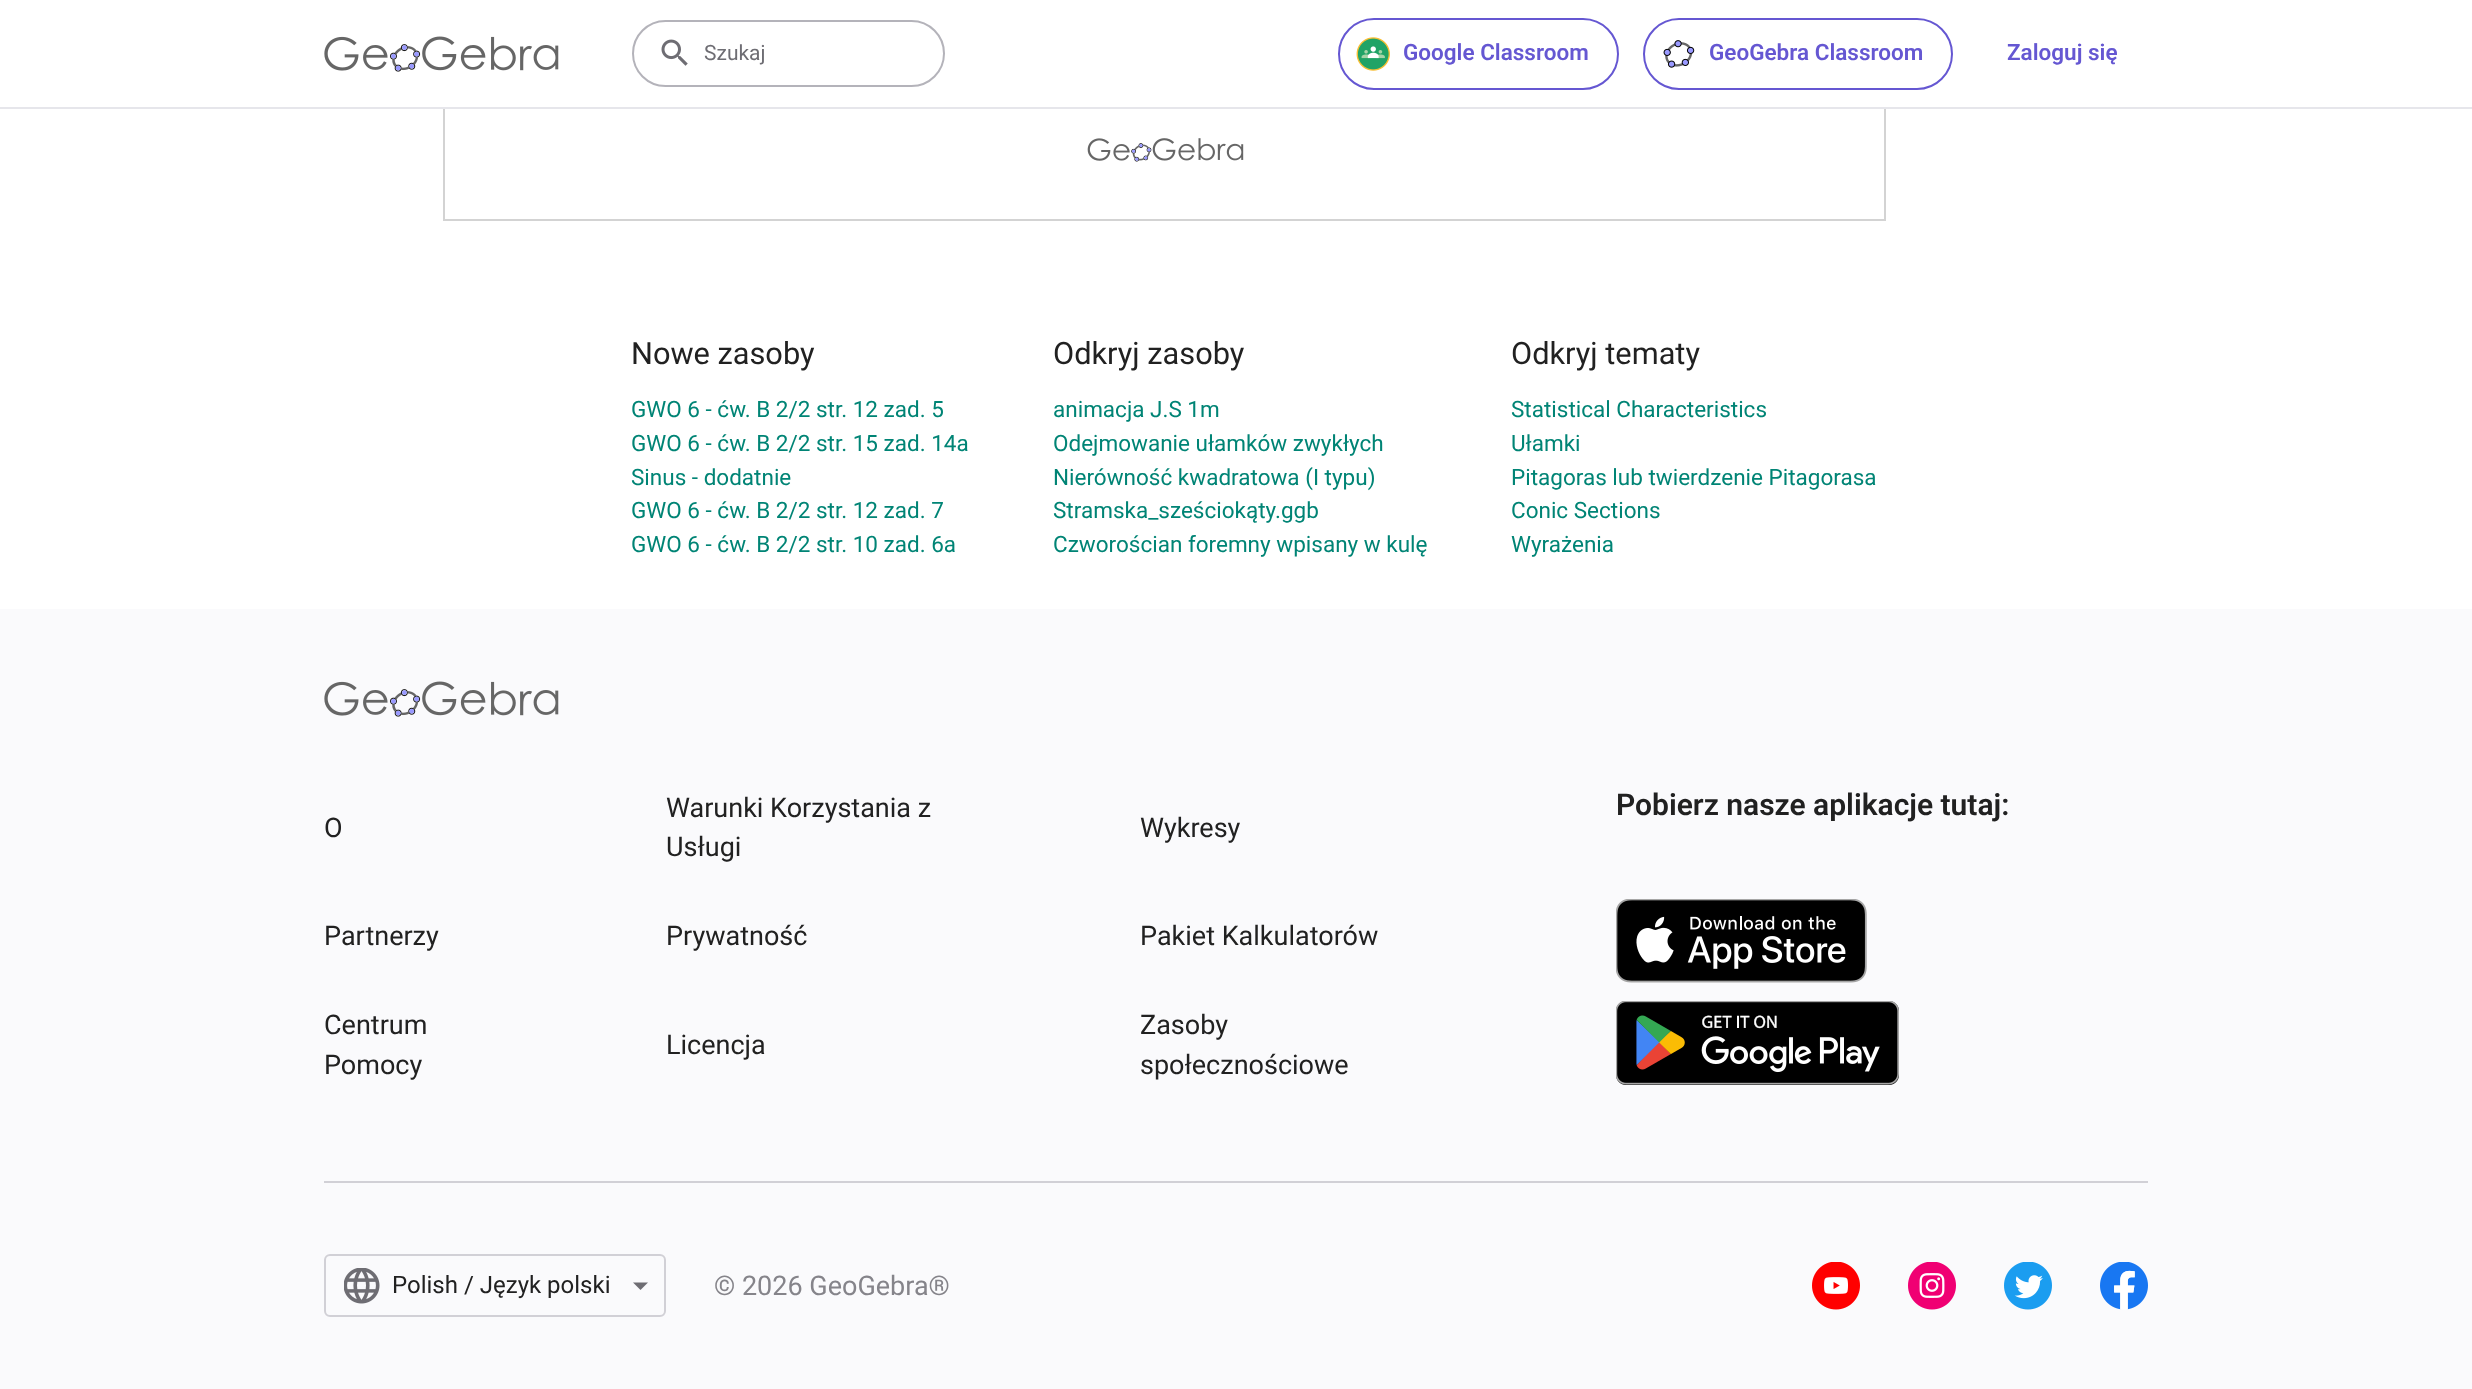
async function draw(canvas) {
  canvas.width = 2472
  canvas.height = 1389
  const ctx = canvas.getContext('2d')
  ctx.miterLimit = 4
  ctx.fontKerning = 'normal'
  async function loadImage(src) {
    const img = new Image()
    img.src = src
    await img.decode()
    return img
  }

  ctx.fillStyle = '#fff'
  ctx.fillRect(0, 0, 2472, 1389)
  ctx.drawImage(await loadImage('image4.png'), 1087, 138, 157, 24)
  ctx.strokeStyle = '#d3d3d3'
  ctx.lineWidth = 2
  ctx.strokeRect(444, -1, 1441, 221)
  ctx.fillRect(443, 0, 1443, 107)
  ctx.fillStyle = '#e6e6eb'
  ctx.fillRect(0, 107, 2472, 2)
  ctx.drawImage(await loadImage('image0.png'), 324, 36, 235, 36)
  ctx.beginPath()
  ctx.roundRect(633, 21, 311, 65, 32.5)
  ctx.strokeStyle = '#b4b3ba'
  ctx.stroke()
  ctx.drawImage(await loadImage('image1.png'), 661, 39, 27, 27)
  ctx.font = '21px Roboto'
  ctx.fillStyle = '#6e6d73'
  ctx.fillText('Szukaj', 704, 60)
  ctx.beginPath()
  ctx.roundRect(1339, 19, 279, 70, 35)
  ctx.strokeStyle = '#6557d2'
  ctx.stroke()
  ctx.drawImage(await loadImage('image2.png'), 1356, 37, 34, 34)
  ctx.font = '600 22.5px Roboto'
  ctx.fillStyle = '#6557d2'
  ctx.fillText('Google Classroom', 1403, 60)
  ctx.beginPath()
  ctx.roundRect(1644, 19, 308, 70, 35)
  ctx.stroke()
  ctx.drawImage(await loadImage('image3.png'), 1663, 40, 32, 28)
  ctx.fillText('GeoGebra Classroom', 1709, 60)
  ctx.fillText('Zaloguj się', 2007, 60)
  ctx.font = '30.75px Roboto'
  ctx.fillStyle = '#212121'
  ctx.fillText('Nowe zasoby', 631, 364)
  ctx.font = '22.5px Roboto'
  ctx.fillStyle = '#008475'
  ctx.fillText('GWO 6 - ćw. B 2/2 str. 12 zad. 5', 631, 417)
  ctx.fillText('GWO 6 - ćw. B 2/2 str. 15 zad. 14a', 631, 451)
  ctx.fillText('Sinus - dodatnie', 631, 485)
  ctx.fillText('GWO 6 - ćw. B 2/2 str. 12 zad. 7', 631, 518)
  ctx.fillText('GWO 6 - ćw. B 2/2 str. 10 zad. 6a', 631, 552)
  ctx.font = '30.75px Roboto'
  ctx.fillStyle = '#212121'
  ctx.fillText('Odkryj zasoby', 1053, 364)
  ctx.font = '22.5px Roboto'
  ctx.fillStyle = '#008475'
  ctx.fillText('animacja J.S 1m', 1053, 417)
  ctx.fillText('Odejmowanie ułamków zwykłych', 1053, 451)
  ctx.fillText('Nierówność kwadratowa (I typu)', 1053, 485)
  ctx.fillText('Stramska_sześciokąty.ggb', 1053, 518)
  ctx.fillText('Czworościan foremny wpisany w kulę', 1053, 552)
  ctx.font = '30.75px Roboto'
  ctx.fillStyle = '#212121'
  ctx.fillText('Odkryj tematy', 1511, 364)
  ctx.font = '22.5px Roboto'
  ctx.fillStyle = '#008475'
  ctx.fillText('Statistical Characteristics', 1511, 417)
  ctx.fillText('Ułamki', 1511, 451)
  ctx.fillText('Pitagoras lub twierdzenie Pitagorasa', 1511, 485)
  ctx.fillText('Conic Sections', 1511, 518)
  ctx.fillText('Wyrażenia', 1511, 552)
  ctx.fillStyle = '#fafafc'
  ctx.fillRect(0, 609, 2472, 780)
  ctx.drawImage(await loadImage('image5.png'), 324, 681, 235, 36)
  ctx.font = '27px Roboto'
  ctx.fillStyle = '#212121'
  ctx.fillText('O', 324, 837)
  ctx.fillText('Partnerzy', 324, 945)
  ctx.fillText('Centrum', 324, 1034)
  ctx.fillText('Pomocy', 324, 1074)
  ctx.fillText('Warunki Korzystania z', 666, 817)
  ctx.fillText('Usługi', 666, 856)
  ctx.fillText('Prywatność', 666, 945)
  ctx.fillText('Licencja', 666, 1054)
  ctx.fillText('Wykresy', 1140, 837)
  ctx.fillText('Pakiet Kalkulatorów', 1140, 945)
  ctx.fillText('Zasoby', 1140, 1034)
  ctx.fillText('społecznościowe', 1140, 1074)
  ctx.font = '600 30px Roboto'
  ctx.fillText('Pobierz nasze aplikacje tutaj:', 1616, 815)
  ctx.drawImage(await loadImage('image6.png'), 1616, 899, 251, 84)
  ctx.drawImage(await loadImage('image7.png'), 1616, 1001, 283, 84)
  ctx.fillStyle = '#d1d0d6'
  ctx.fillRect(324, 1181, 1824, 2)
  ctx.beginPath()
  ctx.roundRect(325, 1255, 340, 61, 5)
  ctx.strokeStyle = '#d1d0d6'
  ctx.stroke()
  ctx.drawImage(await loadImage('image8.png'), 344, 1268, 36, 36)
  ctx.font = '24px Roboto'
  ctx.fillStyle = '#212121'
  ctx.fillText('Polish / Język polski', 392, 1293)
  ctx.fillStyle = '#6e6d73'
  ctx.beginPath()
  ctx.moveTo(633, 1282.5)
  ctx.lineTo(640.5, 1290)
  ctx.lineTo(648, 1282.5)
  ctx.closePath()
  ctx.fill()
  ctx.font = '27px Roboto'
  ctx.fillStyle = '#85848a'
  ctx.fillText('© 2026 GeoGebra®', 714, 1295)
  ctx.drawImage(await loadImage('image9.png'), 1812, 1262, 48, 48)
  ctx.drawImage(await loadImage('image10.png'), 1908, 1262, 48, 48)
  ctx.drawImage(await loadImage('image11.png'), 2004, 1262, 48, 48)
  ctx.drawImage(await loadImage('image12.png'), 2100, 1262, 48, 48)
}

draw(document.querySelector('canvas'))
